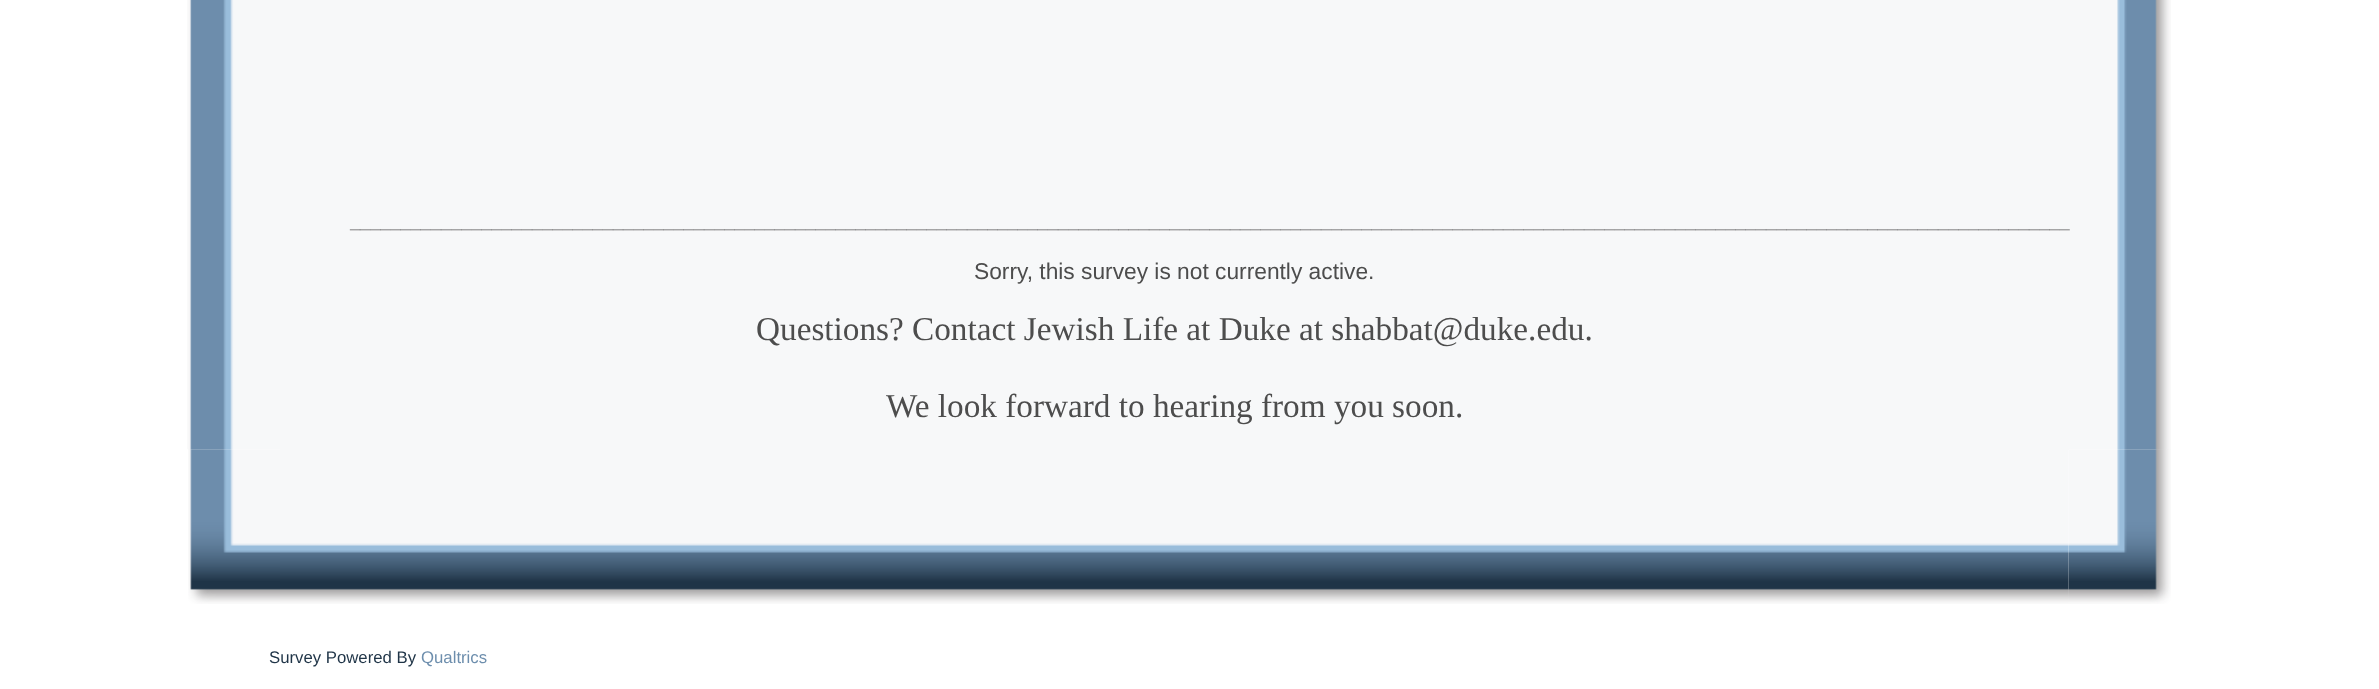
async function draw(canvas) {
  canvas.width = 2379
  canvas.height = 689
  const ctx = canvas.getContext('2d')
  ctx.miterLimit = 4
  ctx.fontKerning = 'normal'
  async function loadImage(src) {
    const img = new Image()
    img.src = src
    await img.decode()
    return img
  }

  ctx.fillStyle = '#fff'
  ctx.fillRect(0, 0, 2379, 689)
  ctx.drawImage(await loadImage('image0.png'), 187, 0, 93, 450)
  ctx.fillStyle = '#f7f8f9'
  ctx.fillRect(280, 0, 1789, 450)
  ctx.drawImage(await loadImage('image1.png'), 2069, 0, 102, 450)
  ctx.font = 'bold 18.2px Liberation Sans'
  ctx.fillStyle = '#4d4d4d'
  ctx.fillText('__________________________________________________________________________________________________________________________________________________________________________', 350, 228)
  ctx.font = '22.75px Liberation Sans'
  ctx.fillText('Sorry, this survey is not currently active.', 974, 279)
  ctx.font = '33.25px Liberation Serif'
  ctx.fillText('Questions? Contact Jewish Life at Duke at shabbat@duke.edu.', 756, 340)
  ctx.fillText('We look forward to hearing from you soon.', 886, 417)
  ctx.drawImage(await loadImage('image2.png'), 188, 449, 92, 155)
  ctx.drawImage(await loadImage('image3.png'), 280, 450, 1789, 154)
  ctx.drawImage(await loadImage('image4.png'), 2068, 449, 103, 155)
  ctx.font = '16.75px Liberation Sans'
  ctx.fillStyle = '#1f3447'
  ctx.fillText('Survey Powered By', 269, 663)
  ctx.fillStyle = '#6d8ead'
  ctx.fillText('Qualtrics', 421, 663)
}

draw(document.querySelector('canvas'))
